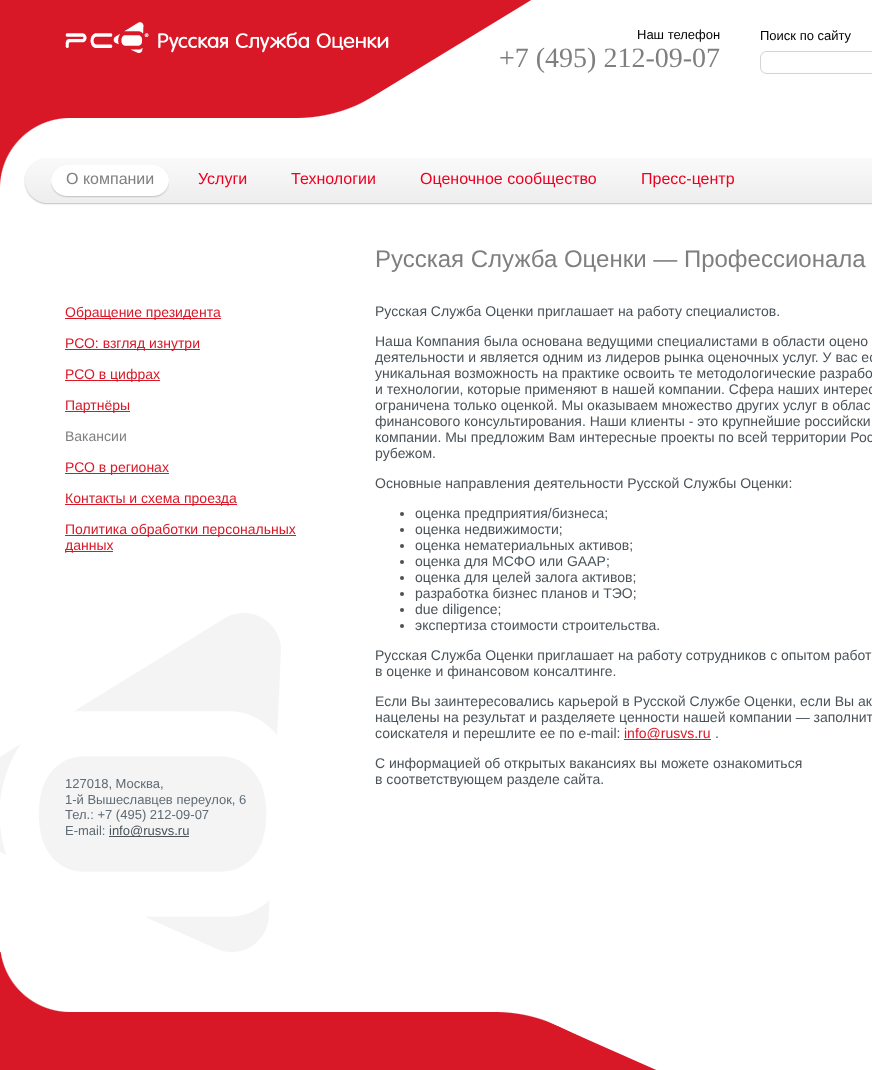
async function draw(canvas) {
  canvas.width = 872
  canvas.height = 1070
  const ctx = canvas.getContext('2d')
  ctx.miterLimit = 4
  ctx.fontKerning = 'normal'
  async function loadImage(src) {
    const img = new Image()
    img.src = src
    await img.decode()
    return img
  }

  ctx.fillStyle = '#fff'
  ctx.fillRect(0, 0, 872, 1070)
  ctx.drawImage(await loadImage('image0.png'), 0, 118, 69, 69)
  ctx.fillStyle = '#d91827'
  ctx.fillRect(0, 0, 299, 118)
  ctx.drawImage(await loadImage('image3.png'), 299, 0, 233, 118)
  ctx.drawImage(await loadImage('image1.png'), 65, 22, 324, 31)
  ctx.drawImage(await loadImage('image2.png'), 0, 952, 69, 60)
  ctx.font = '13px Liberation Sans'
  ctx.fillStyle = '#000'
  ctx.fillText('Наш телефон', 637, 39)
  ctx.font = '28px Liberation Serif'
  ctx.fillStyle = '#7f7f7f'
  ctx.fillText('+7 (495) 212-09-07', 499, 67)
  ctx.font = '13px Liberation Sans'
  ctx.fillStyle = '#000'
  ctx.fillText('Поиск по сайту', 760, 40)
  ctx.drawImage(await loadImage('image4.png'), 760, 51, 112, 23)
  ctx.drawImage(await loadImage('image5.png'), 24, 158, 20, 47)
  ctx.drawImage(await loadImage('image6.png'), 44, 158, 828, 47)
  ctx.drawImage(await loadImage('image7.png'), 66, 165, 103, 33)
  ctx.drawImage(await loadImage('image8.png'), 44, 165, 22, 33)
  ctx.font = '16px Liberation Sans'
  ctx.fillStyle = '#7f7f7f'
  ctx.fillText('О компании', 66, 184)
  ctx.fillStyle = '#ed0021'
  ctx.fillText('Услуги', 198, 184)
  ctx.fillText('Технологии', 291, 184)
  ctx.fillText('Оценочное сообщество', 420, 184)
  ctx.fillText('Пресс-центр', 641, 184)
  ctx.fillStyle = '#d91827'
  ctx.fillRect(65, 318, 156, 1)
  ctx.font = '14px Liberation Sans'
  ctx.fillText('Обращение президента', 65, 317)
  ctx.fillRect(65, 349, 135, 1)
  ctx.fillText('РСО: взгляд изнутри', 65, 348)
  ctx.fillRect(65, 380, 95, 1)
  ctx.fillText('РСО в цифрах', 65, 379)
  ctx.fillRect(65, 411, 65, 1)
  ctx.fillText('Партнёры', 65, 410)
  ctx.fillStyle = '#7f7f7f'
  ctx.fillText('Вакансии', 65, 441)
  ctx.fillStyle = '#d91827'
  ctx.fillRect(65, 473, 104, 1)
  ctx.fillText('РСО в регионах', 65, 472)
  ctx.fillRect(65, 504, 172, 1)
  ctx.fillText('Контакты и схема проезда', 65, 503)
  ctx.fillRect(65, 535, 231, 1)
  ctx.fillText('Политика обработки персональных', 65, 534)
  ctx.fillRect(65, 551, 48, 1)
  ctx.fillText('данных', 65, 550)
  ctx.drawImage(await loadImage('image9.png'), 0, 613, 281, 339)
  ctx.font = '13px Liberation Sans'
  ctx.fillStyle = '#5f6a72'
  ctx.fillText('127018, Москва,', 65, 788)
  ctx.fillText('1-й Вышеславцев переулок, 6', 65, 804)
  ctx.fillText('Тел.: +7 (495) 212-09-07', 65, 819)
  ctx.fillText('E-mail:', 65, 835)
  ctx.fillStyle = '#4a5359'
  ctx.fillRect(109, 836, 80, 1)
  ctx.fillText('info@rusvs.ru', 109, 835)
  ctx.font = '24px Liberation Sans'
  ctx.fillStyle = '#7f7f7f'
  ctx.fillText('Русская Служба Оценки — Профессионала', 375, 267)
  ctx.font = '14px Liberation Sans'
  ctx.fillStyle = '#4a5359'
  ctx.fillText('Русская Служба Оценки приглашает на работу специалистов.', 375, 316)
  ctx.fillText('Наша Компания была основана ведущими специалистами в области оцено', 375, 346)
  ctx.fillText('деятельности и является одним из лидеров рынка оценочных услуг. У вас ес', 375, 362)
  ctx.fillText('уникальная возможность на практике освоить те методологические разрабо', 375, 378)
  ctx.fillText('и технологии, которые применяют в нашей компании. Сфера наших интерес', 375, 394)
  ctx.fillText('ограничена только оценкой. Мы оказываем множество других услуг в облас', 375, 410)
  ctx.fillText('финансового консультирования. Наши клиенты - это крупнейшие российски', 375, 426)
  ctx.fillText('компании. Мы предложим Вам интересные проекты по всей территории Рос', 375, 442)
  ctx.fillText('рубежом.', 375, 458)
  ctx.fillText('Основные направления деятельности Русской Службы Оценки:', 375, 488)
  ctx.beginPath()
  ctx.arc(402, 514, 2, 0, 2 * Math.PI)
  ctx.fill()
  ctx.fillText('оценка предприятия/бизнеса;', 415, 518)
  ctx.beginPath()
  ctx.arc(402, 530, 2, 0, 2 * Math.PI)
  ctx.fill()
  ctx.fillText('оценка недвижимости;', 415, 534)
  ctx.beginPath()
  ctx.arc(402, 546, 2, 0, 2 * Math.PI)
  ctx.fill()
  ctx.fillText('оценка нематериальных активов;', 415, 550)
  ctx.beginPath()
  ctx.arc(402, 562, 2, 0, 2 * Math.PI)
  ctx.fill()
  ctx.fillText('оценка для МСФО или GAAP;', 415, 566)
  ctx.beginPath()
  ctx.arc(402, 578, 2, 0, 2 * Math.PI)
  ctx.fill()
  ctx.fillText('оценка для целей залога активов;', 415, 582)
  ctx.beginPath()
  ctx.arc(402, 594, 2, 0, 2 * Math.PI)
  ctx.fill()
  ctx.fillText('разработка бизнес планов и ТЭО;', 415, 598)
  ctx.beginPath()
  ctx.arc(402, 610, 2, 0, 2 * Math.PI)
  ctx.fill()
  ctx.fillText('due diligence;', 415, 614)
  ctx.beginPath()
  ctx.arc(402, 626, 2, 0, 2 * Math.PI)
  ctx.fill()
  ctx.fillText('экспертиза стоимости строительства.', 415, 630)
  ctx.fillText('Русская Служба Оценки приглашает на работу сотрудников с опытом работ', 375, 660)
  ctx.fillText('в оценке и финансовом консалтинге.', 375, 676)
  ctx.fillText('Если Вы заинтересовались карьерой в Русской Службе Оценки, если Вы ак', 375, 706)
  ctx.fillText('нацелены на результат и разделяете ценности нашей компании — заполнит', 375, 722)
  ctx.fillText('соискателя и перешлите ее по e-mail:', 375, 738)
  ctx.fillStyle = '#d91827'
  ctx.fillRect(624, 739, 87, 1)
  ctx.fillText('info@rusvs.ru', 624, 738)
  ctx.fillStyle = '#4a5359'
  ctx.fillText('.', 715, 738)
  ctx.fillText('С информацией об открытых вакансиях вы можете ознакомиться', 375, 768)
  ctx.fillText('в соответствующем разделе сайта.', 375, 784)
  ctx.fillStyle = '#d91827'
  ctx.fillRect(0, 1012, 498, 58)
  ctx.drawImage(await loadImage('image10.png'), 498, 1012, 159, 58)
}

draw(document.querySelector('canvas'))
